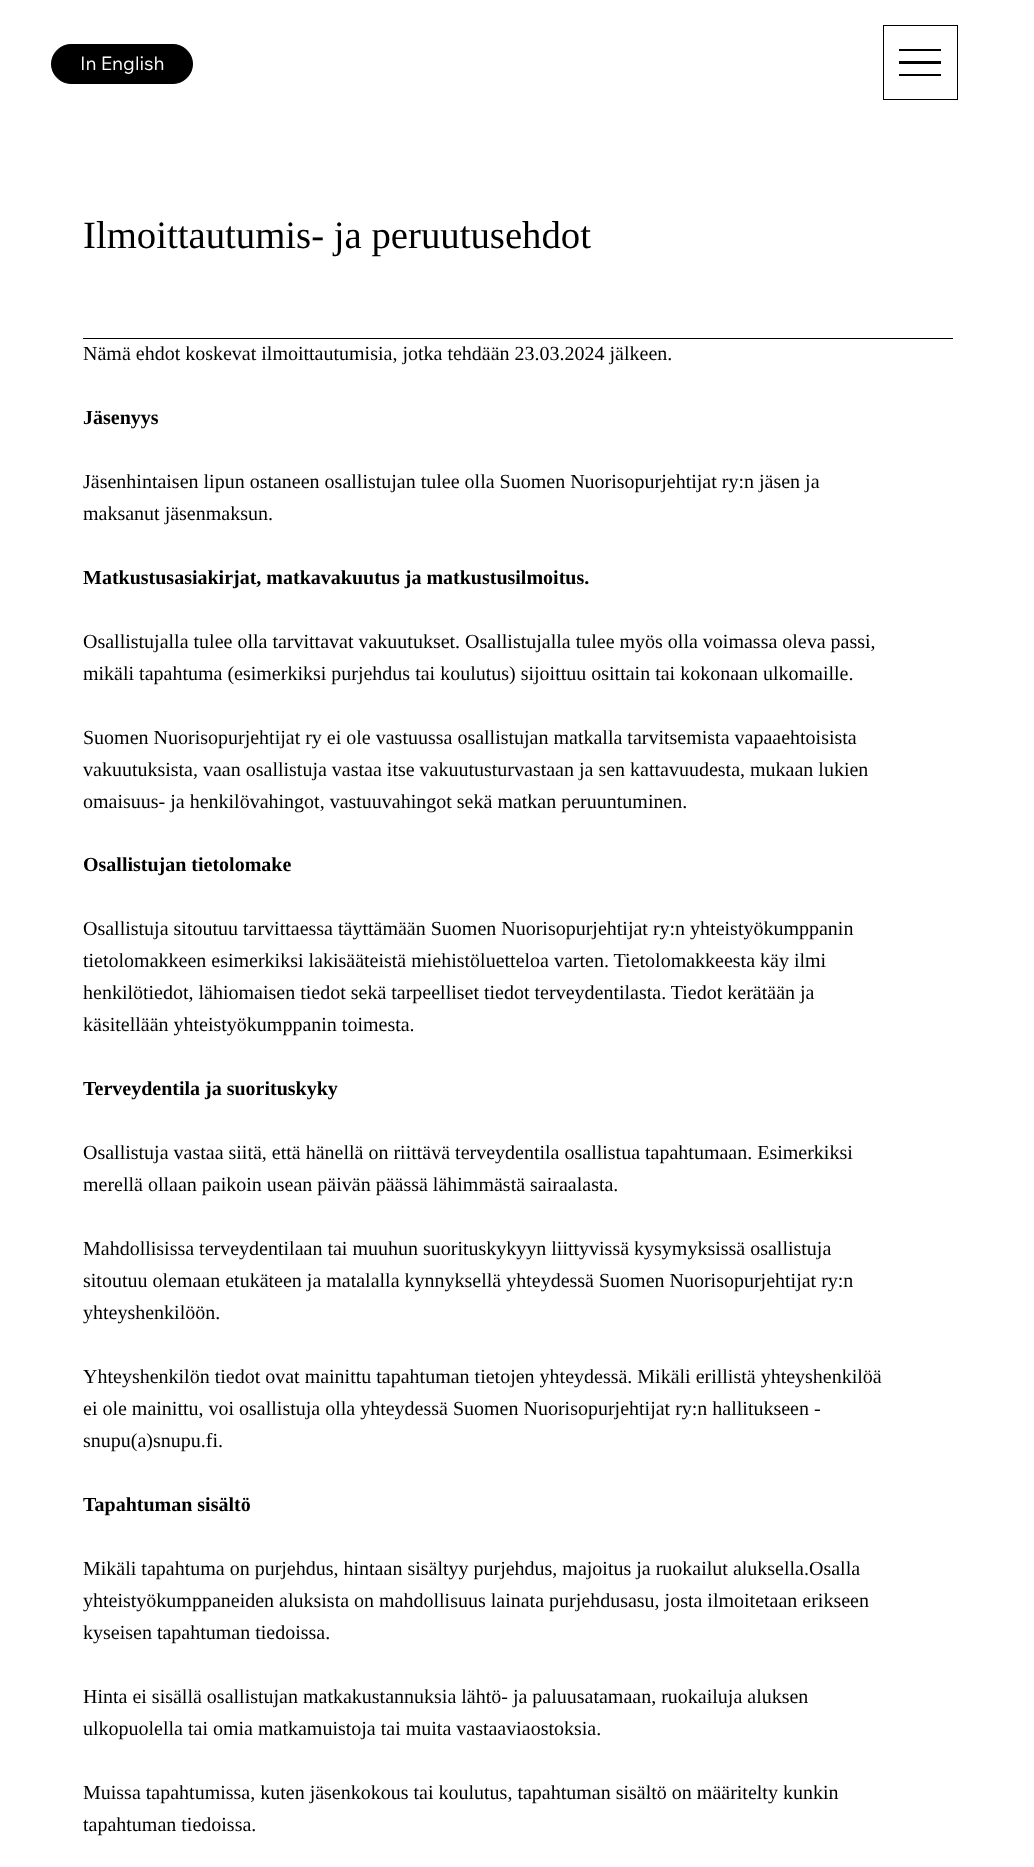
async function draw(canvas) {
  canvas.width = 1034
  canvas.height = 1867
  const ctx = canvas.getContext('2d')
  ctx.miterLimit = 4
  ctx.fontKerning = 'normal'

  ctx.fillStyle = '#fff'
  ctx.fillRect(0, 0, 1034, 1867)
  ctx.fillStyle = '#000'
  ctx.beginPath()
  ctx.roundRect(51.5, 44.5, 141, 39, 19.5)
  ctx.fill()
  ctx.strokeStyle = '#000'
  ctx.stroke()
  ctx.font = '18.75px Wix Madefor Text'
  ctx.fillStyle = '#fff'
  ctx.fillText('In English', 80, 70)
  ctx.strokeRect(883.5, 25.5, 74, 74)
  ctx.fillStyle = '#000'
  ctx.fillRect(899, 49, 42, 2)
  ctx.fillRect(899, 61, 42, 3)
  ctx.fillRect(899, 74, 42, 2)
  ctx.font = '38.75px Liberation Serif'
  ctx.fillText('Ilmoittautumis- ja peruutusehdot', 83, 248)
  ctx.fillRect(83, 338, 870, 1)
  ctx.font = '20px Liberation Serif'
  ctx.fillText('Nämä ehdot koskevat ilmoittautumisia, jotka tehdään 23.03.2024 jälkeen.', 83, 360)
  ctx.font = 'bold 20px Liberation Serif'
  ctx.fillText('Jäsenyys', 83, 424)
  ctx.font = '20px Liberation Serif'
  ctx.fillText('Jäsenhintaisen lipun ostaneen osallistujan tulee olla Suomen Nuorisopurjehtijat ry:n jäsen ja', 83, 488)
  ctx.fillText('maksanut jäsenmaksun.', 83, 520)
  ctx.font = 'bold 20px Liberation Serif'
  ctx.fillText('Matkustusasiakirjat, matkavakuutus ja matkustusilmoitus.', 83, 584)
  ctx.font = '20px Liberation Serif'
  ctx.fillText('Osallistujalla tulee olla tarvittavat vakuutukset. Osallistujalla tulee myös olla voimassa oleva passi,', 83, 648)
  ctx.fillText('mikäli tapahtuma (esimerkiksi purjehdus tai koulutus) sijoittuu osittain tai kokonaan ulkomaille.', 83, 680)
  ctx.fillText('Suomen Nuorisopurjehtijat ry ei ole vastuussa osallistujan matkalla tarvitsemista vapaaehtoisista', 83, 744)
  ctx.fillText('vakuutuksista, vaan osallistuja vastaa itse vakuutusturvastaan ja sen kattavuudesta, mukaan lukien', 83, 776)
  ctx.fillText('omaisuus- ja henkilövahingot, vastuuvahingot sekä matkan peruuntuminen.', 83, 808)
  ctx.font = 'bold 20px Liberation Serif'
  ctx.fillText('Osallistujan tietolomake', 83, 871)
  ctx.font = '20px Liberation Serif'
  ctx.fillText('Osallistuja sitoutuu tarvittaessa täyttämään Suomen Nuorisopurjehtijat ry:n yhteistyökumppanin', 83, 935)
  ctx.fillText('tietolomakkeen esimerkiksi lakisääteistä miehistöluetteloa varten. Tietolomakkeesta käy ilmi', 83, 967)
  ctx.fillText('henkilötiedot, lähiomaisen tiedot sekä tarpeelliset tiedot terveydentilasta. Tiedot kerätään ja', 83, 999)
  ctx.fillText('käsitellään yhteistyökumppanin toimesta.', 83, 1031)
  ctx.font = 'bold 20px Liberation Serif'
  ctx.fillText('Terveydentila ja suorituskyky', 83, 1095)
  ctx.font = '20px Liberation Serif'
  ctx.fillText('Osallistuja vastaa siitä, että hänellä on riittävä terveydentila osallistua tapahtumaan. Esimerkiksi', 83, 1159)
  ctx.fillText('merellä ollaan paikoin usean päivän päässä lähimmästä sairaalasta.', 83, 1191)
  ctx.fillText('Mahdollisissa terveydentilaan tai muuhun suorituskykyyn liittyvissä kysymyksissä osallistuja', 83, 1255)
  ctx.fillText('sitoutuu olemaan etukäteen ja matalalla kynnyksellä yhteydessä Suomen Nuorisopurjehtijat ry:n', 83, 1287)
  ctx.fillText('yhteyshenkilöön.', 83, 1319)
  ctx.fillText('Yhteyshenkilön tiedot ovat mainittu tapahtuman tietojen yhteydessä. Mikäli erillistä yhteyshenkilöä', 83, 1383)
  ctx.fillText('ei ole mainittu, voi osallistuja olla yhteydessä Suomen Nuorisopurjehtijat ry:n hallitukseen -', 83, 1415)
  ctx.fillText('snupu(a)snupu.fi.', 83, 1447)
  ctx.font = 'bold 20px Liberation Serif'
  ctx.fillText('Tapahtuman sisältö', 83, 1511)
  ctx.font = '20px Liberation Serif'
  ctx.fillText('Mikäli tapahtuma on purjehdus, hintaan sisältyy purjehdus, majoitus ja ruokailut aluksella.Osalla', 83, 1575)
  ctx.fillText('yhteistyökumppaneiden aluksista on mahdollisuus lainata purjehdusasu, josta ilmoitetaan erikseen', 83, 1607)
  ctx.fillText('kyseisen tapahtuman tiedoissa.', 83, 1639)
  ctx.fillText('Hinta ei sisällä osallistujan matkakustannuksia lähtö- ja paluusatamaan, ruokailuja aluksen', 83, 1703)
  ctx.fillText('ulkopuolella tai omia matkamuistoja tai muita vastaaviaostoksia.', 83, 1735)
  ctx.fillText('Muissa tapahtumissa, kuten jäsenkokous tai koulutus, tapahtuman sisältö on määritelty kunkin', 83, 1799)
  ctx.fillText('tapahtuman tiedoissa.', 83, 1831)
}

draw(document.querySelector('canvas'))
